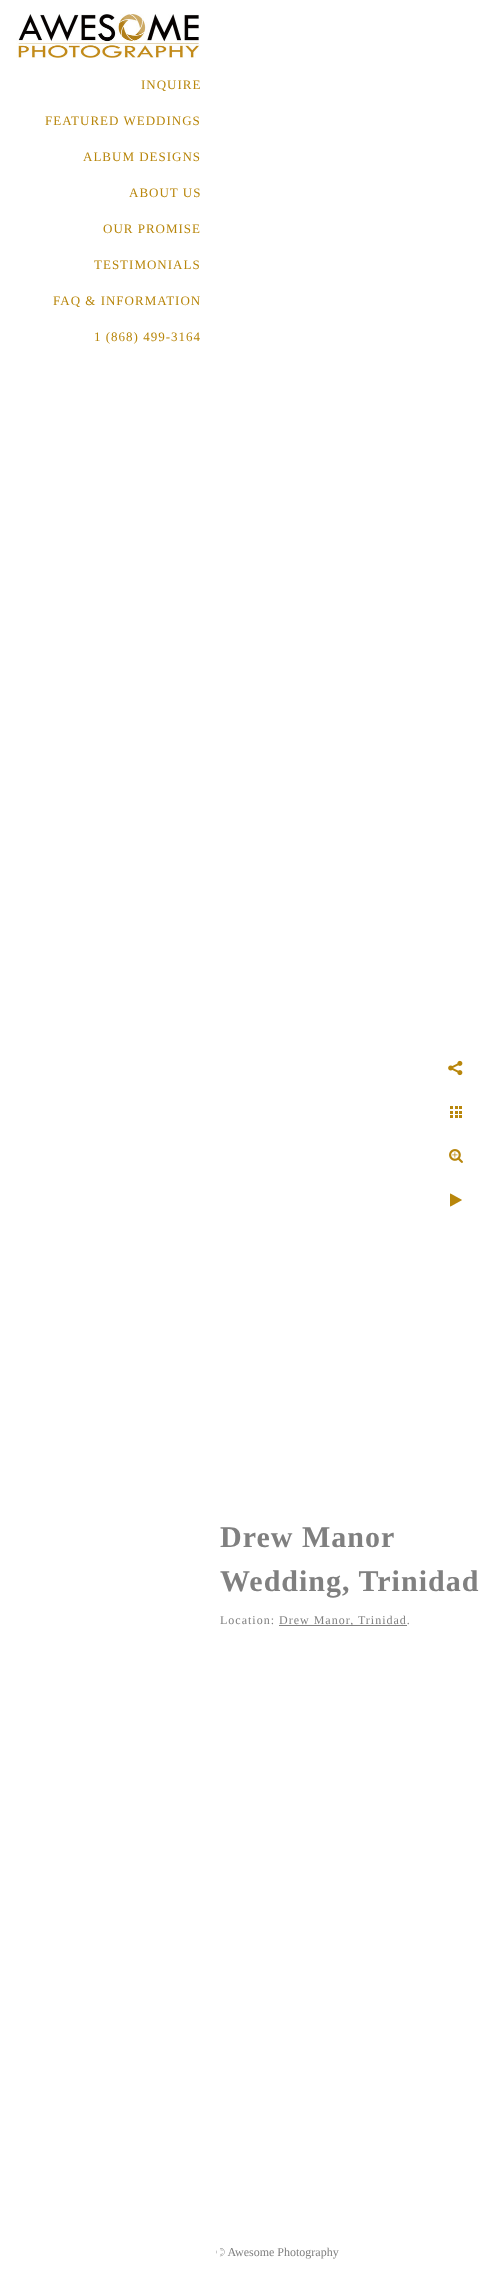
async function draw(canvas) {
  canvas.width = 483
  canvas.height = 2272
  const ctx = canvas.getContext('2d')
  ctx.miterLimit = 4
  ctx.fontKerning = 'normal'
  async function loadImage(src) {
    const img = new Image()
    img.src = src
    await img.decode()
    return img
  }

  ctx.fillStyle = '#fff'
  ctx.fillRect(0, 0, 483, 2272)
  ctx.font = '12px Liberation Serif'
  ctx.fillStyle = '#808080'
  ctx.fillText('© Awesome Photography', 216, 2256)
  ctx.fillStyle = '#fff'
  ctx.fillRect(217, 2248, 3, 8)
  ctx.drawImage(await loadImage('image0.png'), 16, 14, 184, 44)
  ctx.letterSpacing = '1px'
  ctx.font = '13px Liberation Serif'
  ctx.fillStyle = '#b8860b'
  ctx.fillText('INQUIRE', 141, 89)
  ctx.fillText('FEATURED WEDDINGS', 45, 125)
  ctx.fillText('ALBUM DESIGNS', 83, 161)
  ctx.fillText('ABOUT US', 129, 197)
  ctx.fillText('OUR PROMISE', 103, 233)
  ctx.fillText('TESTIMONIALS', 94, 269)
  ctx.fillText('FAQ & INFORMATION', 53, 305)
  ctx.fillText('1 (868) 499-3164', 94, 341)
  ctx.drawImage(await loadImage('image1.png'), 448, 1060, 15, 16)
  ctx.drawImage(await loadImage('image2.png'), 450, 1106, 12, 12)
  ctx.drawImage(await loadImage('image3.png'), 449, 1149, 14, 14)
  ctx.drawImage(await loadImage('image4.png'), 450, 1193, 12, 14)
  ctx.font = 'bold 30px Liberation Serif'
  ctx.fillStyle = '#808080'
  ctx.fillText('Drew Manor', 220, 1547)
  ctx.fillText('Wedding, Trinidad', 220, 1591)
  ctx.font = '12px Liberation Serif'
  ctx.fillText('Location:', 220, 1624)
  ctx.fillRect(279, 1625, 128, 1)
  ctx.fillText('Drew Manor, Trinidad.', 279, 1624)
}

draw(document.querySelector('canvas'))
